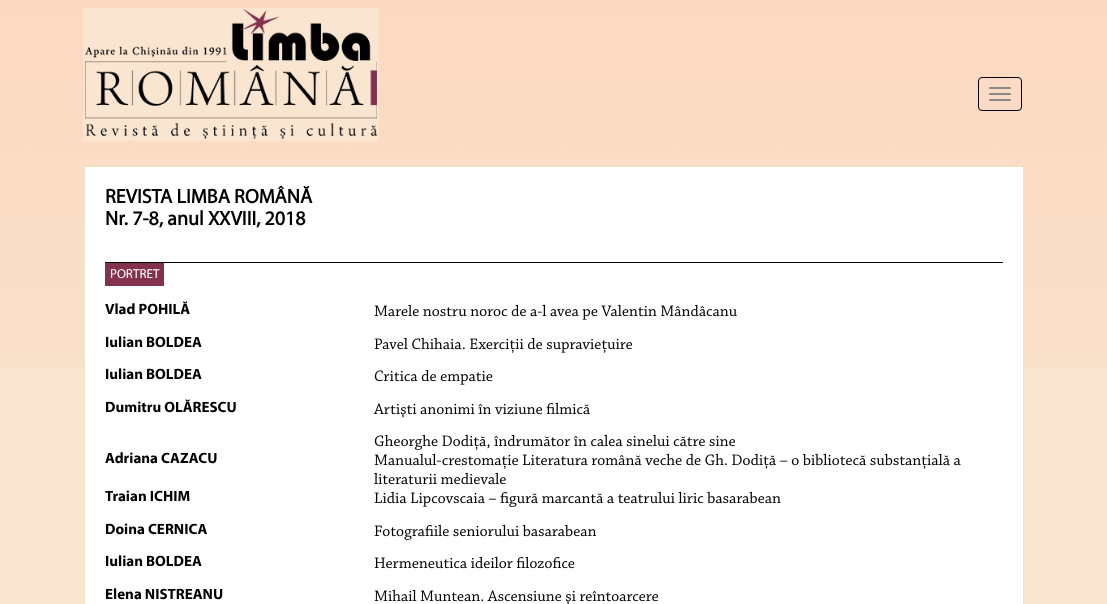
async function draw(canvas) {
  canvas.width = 1107
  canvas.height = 604
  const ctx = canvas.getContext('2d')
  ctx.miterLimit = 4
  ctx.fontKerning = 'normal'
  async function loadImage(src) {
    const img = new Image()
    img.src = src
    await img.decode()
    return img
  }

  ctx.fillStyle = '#f9e5d0'
  ctx.fillRect(0, 0, 1107, 604)
  ctx.drawImage(await loadImage('image0.png'), 0, 0, 1107, 369)
  ctx.drawImage(await loadImage('image1.png'), 83, 8, 296, 133)
  ctx.beginPath()
  ctx.roundRect(978.5, 77.5, 43, 33, 3.5)
  ctx.strokeStyle = '#000'
  ctx.stroke()
  ctx.fillStyle = '#888'
  ctx.beginPath()
  ctx.roundRect(989, 87, 22, 2, 1)
  ctx.fill()
  ctx.beginPath()
  ctx.roundRect(989, 93, 22, 2, 1)
  ctx.fill()
  ctx.beginPath()
  ctx.roundRect(989, 99, 22, 2, 1)
  ctx.fill()
  ctx.fillStyle = '#fff'
  ctx.beginPath()
  ctx.rect(84.5, 166.5, 939, 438)
  ctx.fill()
  ctx.strokeStyle = '#e8e3c2'
  ctx.stroke()
  ctx.font = 'bold 20px "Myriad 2"'
  ctx.fillStyle = '#000'
  ctx.fillText('REVISTA LIMBA ROMÂNĂ', 105, 203)
  ctx.fillText('Nr. 7-8, anul XXVIII, 2018', 105, 225)
  ctx.fillRect(105, 262, 898, 1)
  ctx.fillStyle = '#843150'
  ctx.fillRect(105, 263, 59, 23)
  ctx.font = '13px Myriad'
  ctx.fillStyle = '#fff'
  ctx.fillText('PORTRET', 110, 278)
  ctx.font = 'bold 15px Myriad'
  ctx.fillStyle = '#000'
  ctx.fillText('Vlad POHILĂ', 105, 314)
  ctx.drawImage(await loadImage('image2.png'), 374, 304, 363, 16)
  ctx.fillText('Iulian BOLDEA', 105, 347)
  ctx.drawImage(await loadImage('image3.png'), 374, 337, 259, 16)
  ctx.fillText('Iulian BOLDEA', 105, 379)
  ctx.drawImage(await loadImage('image4.png'), 374, 369, 119, 16)
  ctx.fillText('Dumitru OLĂRESCU', 105, 412)
  ctx.drawImage(await loadImage('image5.png'), 373, 402, 217, 16)
  ctx.drawImage(await loadImage('image6.png'), 374, 434, 361, 16)
  ctx.fillText('Adriana CAZACU', 105, 463)
  ctx.drawImage(await loadImage('image7.png'), 374, 453, 587, 16)
  ctx.drawImage(await loadImage('image8.png'), 374, 472, 132, 13)
  ctx.fillText('Traian ICHIM', 105, 501)
  ctx.drawImage(await loadImage('image9.png'), 374, 491, 407, 16)
  ctx.fillText('Doina CERNICA', 105, 534)
  ctx.drawImage(await loadImage('image10.png'), 374, 524, 223, 16)
  ctx.fillText('Iulian BOLDEA', 105, 566)
  ctx.drawImage(await loadImage('image11.png'), 374, 556, 201, 13)
  ctx.fillText('Elena NISTREANU', 105, 599)
  ctx.drawImage(await loadImage('image12.png'), 374, 589, 285, 15)
}

draw(document.querySelector('canvas'))
